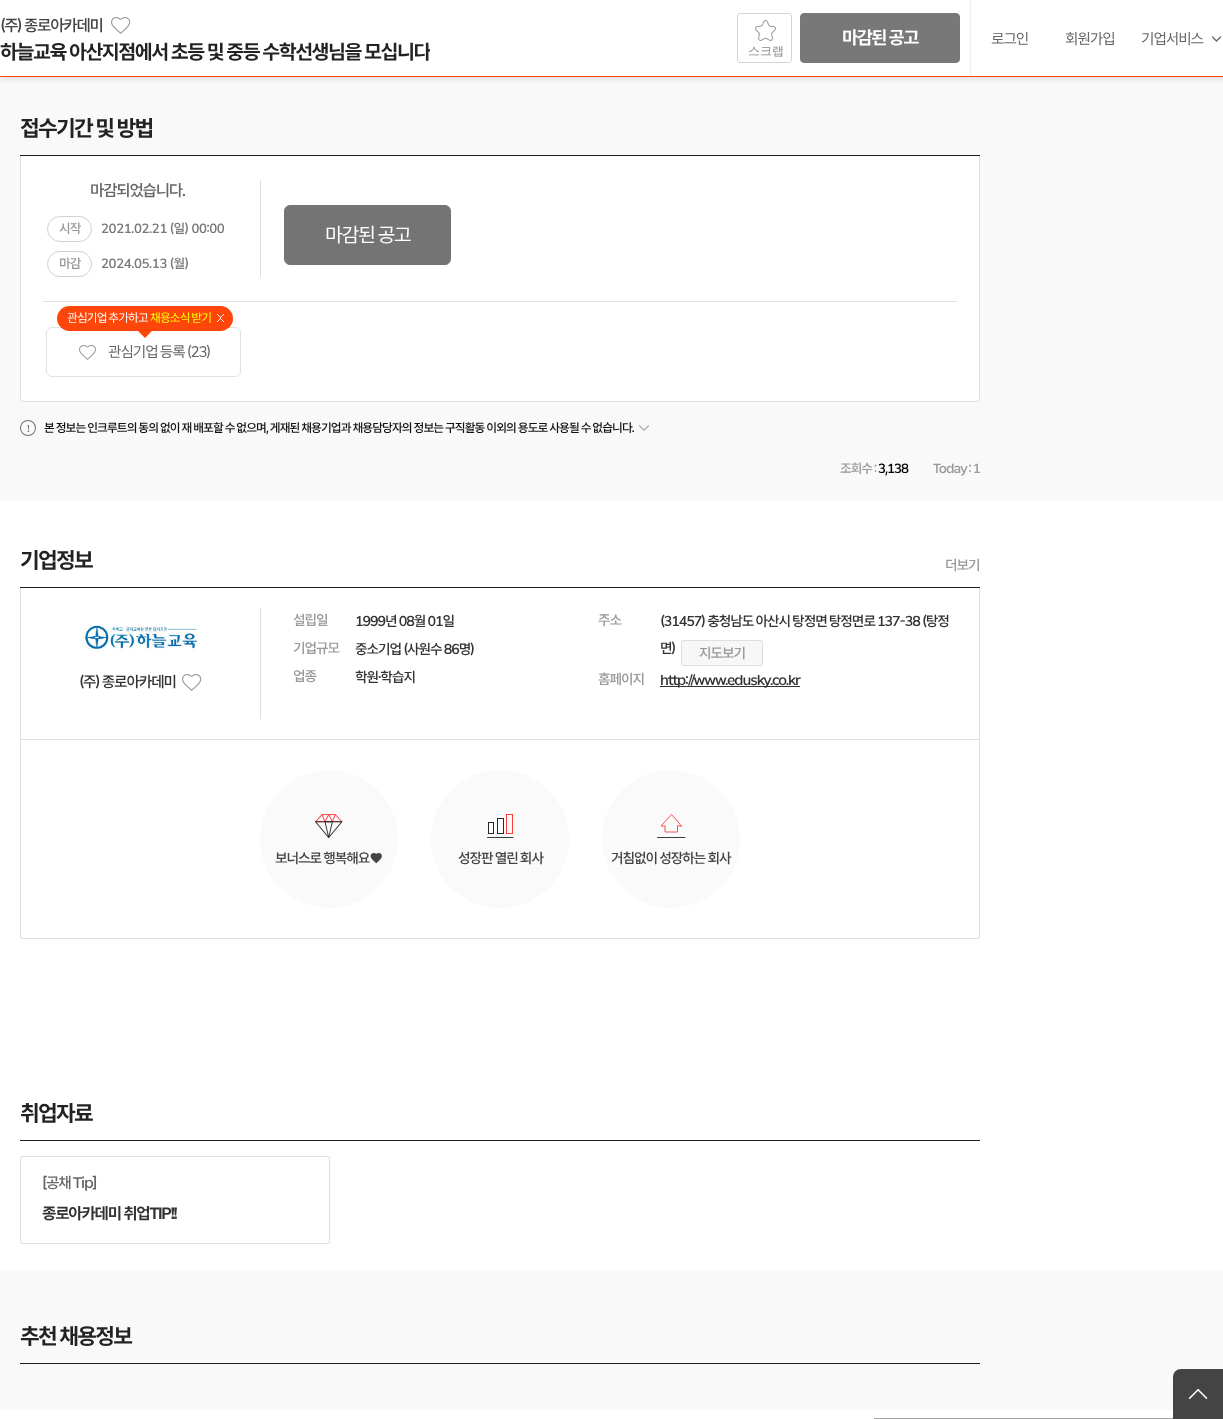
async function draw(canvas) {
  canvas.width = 1223
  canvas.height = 1419
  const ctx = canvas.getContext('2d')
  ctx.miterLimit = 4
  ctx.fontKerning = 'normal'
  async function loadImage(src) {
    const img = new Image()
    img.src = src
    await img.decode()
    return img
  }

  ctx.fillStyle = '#fff'
  ctx.fillRect(0, 0, 1223, 1419)
  ctx.fillStyle = '#f9f9f9'
  ctx.fillRect(0, 77, 1223, 424)
  ctx.fillStyle = '#0000001a'
  ctx.filter = 'blur(3px)'
  ctx.beginPath()
  ctx.rect(0, 2, 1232, 77)
  ctx.fill()
  ctx.filter = 'none'
  ctx.fillStyle = '#fff'
  ctx.fillRect(0, 0, 1223, 76)
  ctx.fillStyle = '#ff460a'
  ctx.fillRect(0, 76, 1223, 1)
  ctx.letterSpacing = '-1.25px'
  ctx.font = '500 16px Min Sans'
  ctx.fillStyle = '#444'
  ctx.fillText('(주) 종로아카데미', 0, 31)
  ctx.drawImage(await loadImage('image0.png'), 111, 17, 20, 17)
  ctx.save()
  ctx.beginPath()
  ctx.rect(0, 38, 430, 26)
  ctx.clip()
  ctx.letterSpacing = '-1.5px'
  ctx.font = 'bold 20px Min Sans'
  ctx.fillStyle = '#222'
  ctx.fillText('하늘교육 아산지점에서 초등 및 중등 수학선생님을 모십니다', 0, 59)
  ctx.restore()
  ctx.fillStyle = '#787878'
  ctx.beginPath()
  ctx.roundRect(800.5, 13.5, 159, 49, 3.5)
  ctx.fill()
  ctx.strokeStyle = '#787878'
  ctx.stroke()
  ctx.letterSpacing = '-1.5px'
  ctx.font = 'bold 18px Min Sans'
  ctx.fillStyle = '#fff'
  ctx.fillText('마감된 공고', 842, 44)
  ctx.beginPath()
  ctx.roundRect(737.5, 13.5, 54, 49, 2.5)
  ctx.strokeStyle = '#d1d6dc'
  ctx.stroke()
  ctx.drawImage(await loadImage('image1.png'), 755, 20, 21, 21)
  ctx.letterSpacing = '0px'
  ctx.font = '500 12px WenQuanYi Zen Hei'
  ctx.fillStyle = '#888'
  ctx.fillText('스크랩', 748, 55)
  ctx.fillStyle = '#eee'
  ctx.fillRect(970, 0, 1, 76)
  ctx.letterSpacing = '-1.1px'
  ctx.font = '15px Min Sans'
  ctx.fillStyle = '#666'
  ctx.fillText('로그인', 991, 44)
  ctx.fillText('회원가입', 1065, 44)
  ctx.drawImage(await loadImage('image2.png'), 1212, 36, 9, 6)
  ctx.fillText('기업서비스', 1141, 44)
  ctx.fillStyle = '#1d1f22'
  ctx.fillRect(20, 155, 960, 1)
  ctx.letterSpacing = '-1.75px'
  ctx.font = 'bold 22px Min Sans'
  ctx.fillStyle = '#222'
  ctx.fillText('접수기간 및 방법', 20, 136)
  ctx.fillStyle = '#fff'
  ctx.beginPath()
  ctx.roundRect(21, 156, 958, 245, [0, 0, 2, 2])
  ctx.fill()
  ctx.fillStyle = '#dae1e6'
  ctx.beginPath()
  ctx.moveTo(20, 156)
  ctx.lineTo(980, 156)
  ctx.lineTo(980, 399)
  ctx.bezierCurveTo(980, 401, 979, 402, 977, 402)
  ctx.lineTo(23, 402)
  ctx.bezierCurveTo(21, 402, 20, 401, 20, 399)
  ctx.closePath()
  ctx.moveTo(21, 156)
  ctx.lineTo(979, 156)
  ctx.lineTo(979, 399)
  ctx.bezierCurveTo(979, 400, 978, 401, 977, 401)
  ctx.lineTo(23, 401)
  ctx.bezierCurveTo(22, 401, 21, 400, 21, 399)
  ctx.closePath()
  ctx.fill('evenodd')
  ctx.fillRect(260, 180, 1, 97)
  ctx.letterSpacing = '-1.25px'
  ctx.font = '500 16px Min Sans'
  ctx.fillStyle = '#666'
  ctx.fillText('마감되었습니다.', 90, 196)
  ctx.beginPath()
  ctx.roundRect(47.5, 216.5, 44, 25, 12.5)
  ctx.strokeStyle = '#d2d2d2'
  ctx.stroke()
  ctx.letterSpacing = '-1px'
  ctx.font = '500 13px Min Sans'
  ctx.fillStyle = '#999'
  ctx.fillText('시작', 59, 233)
  ctx.letterSpacing = '-0.4px'
  ctx.fillStyle = '#777'
  ctx.fillText('2021.02.21 (일) 00:00', 101, 233)
  ctx.beginPath()
  ctx.roundRect(47.5, 251.5, 44, 25, 12.5)
  ctx.stroke()
  ctx.letterSpacing = '-1px'
  ctx.fillStyle = '#999'
  ctx.fillText('마감', 59, 268)
  ctx.letterSpacing = '-0.4px'
  ctx.fillStyle = '#777'
  ctx.fillText('2024.05.13 (월)', 101, 268)
  ctx.fillStyle = '#747474'
  ctx.beginPath()
  ctx.roundRect(284.5, 205.5, 166, 59, 5.5)
  ctx.fill()
  ctx.strokeStyle = '#747474'
  ctx.stroke()
  ctx.letterSpacing = '-1.5px'
  ctx.font = '20px Min Sans'
  ctx.fillStyle = '#fff'
  ctx.fillText('마감된 공고', 325, 242)
  ctx.fillStyle = '#e1e1e1'
  ctx.fillRect(43, 301, 914, 1)
  ctx.beginPath()
  ctx.roundRect(46.5, 327.5, 194, 49, 5.5)
  ctx.strokeStyle = '#e1e1e1'
  ctx.stroke()
  ctx.fillStyle = '#fe460a'
  ctx.beginPath()
  ctx.roundRect(57, 306, 176, 25, 12.5)
  ctx.fill()
  ctx.letterSpacing = '-0.9px'
  ctx.font = '12px Min Sans'
  ctx.fillStyle = '#fff'
  ctx.fillText('관심기업 추가하고', 67, 322)
  ctx.fillStyle = '#feff00'
  ctx.fillText('채용소식 받기', 150, 322)
  ctx.drawImage(await loadImage('image3.png'), 217, 314, 7, 8)
  ctx.fillStyle = '#fe460a'
  ctx.beginPath()
  ctx.moveTo(138, 331)
  ctx.lineTo(152, 331)
  ctx.lineTo(145, 338)
  ctx.closePath()
  ctx.fill()
  ctx.drawImage(await loadImage('image4.png'), 79, 345, 17, 15)
  ctx.letterSpacing = '-1.1px'
  ctx.font = '15px Min Sans'
  ctx.fillStyle = '#666'
  ctx.fillText('관심기업 등록 (23)', 108, 357)
  ctx.drawImage(await loadImage('image5.png'), 20, 420, 16, 16)
  ctx.letterSpacing = '-0.9px'
  ctx.font = '500 12px Min Sans'
  ctx.fillStyle = '#121212'
  ctx.fillText('본 정보는 인크루트의 동의 없이 재 배포할 수 없으며, 게재된 채용기업과 채용담당자의 정보는 구직활동 이외의 용도로 사용될 수 없습니다.', 44, 432)
  ctx.drawImage(await loadImage('image6.png'), 639, 425, 10, 6)
  ctx.letterSpacing = '-1px'
  ctx.font = '500 13px Min Sans'
  ctx.fillStyle = '#999'
  ctx.fillText('조회수 :', 840, 473)
  ctx.fillStyle = '#000'
  ctx.fillText('3,138', 878, 473)
  ctx.fillStyle = '#999'
  ctx.fillText('Today : 1', 933, 473)
  ctx.fillStyle = '#1d1f22'
  ctx.fillRect(20, 587, 960, 1)
  ctx.letterSpacing = '-1.75px'
  ctx.font = 'bold 22px Min Sans'
  ctx.fillStyle = '#222'
  ctx.fillText('기업정보', 20, 568)
  ctx.letterSpacing = '-1.05px'
  ctx.font = '500 14px Min Sans'
  ctx.fillStyle = '#999'
  ctx.fillText('더보기', 945, 570)
  ctx.fillStyle = '#dae1e6'
  ctx.fillRect(21, 739, 958, 1)
  ctx.drawImage(await loadImage('image7.png'), 81, 625, 118, 27)
  ctx.letterSpacing = '-1.1px'
  ctx.font = '500 15px Min Sans'
  ctx.fillStyle = '#333'
  ctx.fillText('(주) 종로아카데미', 79, 687)
  ctx.drawImage(await loadImage('image0.png'), 182, 674, 20, 17)
  ctx.fillStyle = '#dfe0e2'
  ctx.fillRect(260, 608, 1, 111)
  ctx.letterSpacing = '-1.05px'
  ctx.font = '500 14px Min Sans'
  ctx.fillStyle = '#999'
  ctx.fillText('설립일', 293, 625)
  ctx.fillStyle = '#333'
  ctx.fillText('1999년 08월 01일', 355, 626)
  ctx.fillStyle = '#999'
  ctx.fillText('기업규모', 293, 653)
  ctx.fillStyle = '#333'
  ctx.fillText('중소기업 (사원수 86명)', 355, 654)
  ctx.fillStyle = '#999'
  ctx.fillText('업종', 293, 681)
  ctx.fillStyle = '#333'
  ctx.fillText('학원·학습지', 355, 682)
  ctx.fillStyle = '#999'
  ctx.fillText('주소', 598, 625)
  ctx.fillStyle = '#333'
  ctx.fillText('(31457) 충청남도 아산시 탕정면 탕정면로 137-38 (탕정', 660, 626)
  ctx.fillText('면)', 660, 653)
  ctx.fillStyle = '#f7f7f7'
  ctx.beginPath()
  ctx.roundRect(681.5, 640.5, 81, 25, 1.5)
  ctx.fill()
  ctx.strokeStyle = '#dfdfdf'
  ctx.stroke()
  ctx.fillStyle = '#999'
  ctx.fillText('지도보기', 699, 658)
  ctx.fillText('홈페이지', 598, 684)
  ctx.fillStyle = '#333'
  ctx.fillRect(660, 686, 140, 1)
  ctx.fillText('http://www.edusky.co.kr', 660, 685)
  ctx.fillStyle = '#dae1e6'
  ctx.fillRect(979, 588, 1, 350)
  ctx.fillRect(21, 938, 958, 1)
  ctx.fillRect(20, 588, 1, 350)
  ctx.fillStyle = '#fafafa'
  ctx.beginPath()
  ctx.arc(329, 839, 69, 0, 2 * Math.PI)
  ctx.fill()
  ctx.drawImage(await loadImage('image8.png'), 315, 814, 28, 24)
  ctx.fillStyle = '#444'
  ctx.fillText('보너스로 행복해요♥', 275, 863)
  ctx.fillStyle = '#fafafa'
  ctx.beginPath()
  ctx.arc(500, 839, 69, 0, 2 * Math.PI)
  ctx.fill()
  ctx.strokeStyle = '#272727'
  ctx.strokeRect(488.5, 822.5, 5, 11)
  ctx.strokeStyle = '#ff3c3c'
  ctx.strokeRect(506.5, 814.5, 6, 19)
  ctx.strokeStyle = '#272727'
  ctx.strokeRect(497.5, 818.5, 6, 15)
  ctx.beginPath()
  ctx.moveTo(487.5, 837.5)
  ctx.lineTo(513, 837.5)
  ctx.lineWidth = 0.9
  ctx.lineCap = 'round'
  ctx.lineJoin = 'round'
  ctx.stroke()
  ctx.fillStyle = '#444'
  ctx.fillText('성장판 열린 회사', 458, 863)
  ctx.fillStyle = '#fafafa'
  ctx.beginPath()
  ctx.arc(671, 839, 69, 0, 2 * Math.PI)
  ctx.fill()
  ctx.beginPath()
  ctx.moveTo(677.5, 826)
  ctx.lineTo(677.5, 832)
  ctx.lineTo(665, 832)
  ctx.lineTo(665, 826)
  ctx.lineTo(661, 826)
  ctx.lineTo(671.5, 814.5)
  ctx.lineTo(681.5, 826)
  ctx.closePath()
  ctx.strokeStyle = '#ff3c3c'
  ctx.stroke()
  ctx.beginPath()
  ctx.moveTo(657.5, 837.5)
  ctx.lineTo(685, 837.5)
  ctx.strokeStyle = '#272727'
  ctx.stroke()
  ctx.fillStyle = '#444'
  ctx.fillText('거침없이 성장하는 회사', 611, 863)
  ctx.fillStyle = '#1d1f22'
  ctx.fillRect(20, 1140, 960, 1)
  ctx.letterSpacing = '-1.75px'
  ctx.font = 'bold 22px Min Sans'
  ctx.fillStyle = '#222'
  ctx.fillText('취업자료', 20, 1121)
  ctx.beginPath()
  ctx.roundRect(20.5, 1156.5, 309, 87, 1.5)
  ctx.strokeStyle = '#dae1e6'
  ctx.lineWidth = 1
  ctx.lineJoin = 'miter'
  ctx.stroke()
  ctx.letterSpacing = '-1.1px'
  ctx.font = '500 15px Min Sans'
  ctx.fillStyle = '#666'
  ctx.fillText('[공채 Tip]', 42, 1188)
  ctx.letterSpacing = '-1.25px'
  ctx.font = 'bold 16px Min Sans'
  ctx.fillStyle = '#333'
  ctx.fillText('종로아카데미 취업TIP!!', 42, 1219)
  ctx.fillStyle = '#f9f9f9'
  ctx.fillRect(0, 1270, 1223, 140)
  ctx.fillStyle = '#1d1f22'
  ctx.fillRect(20, 1363, 960, 1)
  ctx.letterSpacing = '-1.75px'
  ctx.font = 'bold 22px Min Sans'
  ctx.fillStyle = '#222'
  ctx.fillText('추천 채용정보', 20, 1344)
  ctx.fillStyle = '#a5a5a5'
  ctx.fillRect(874, 1418, 299, 1)
  ctx.fillStyle = '#444'
  ctx.beginPath()
  ctx.roundRect(1173, 1369, 50, 50, [8, 0, 0, 0])
  ctx.fill()
  ctx.drawImage(await loadImage('image9.png'), 1188, 1389, 20, 10)
}

draw(document.querySelector('canvas'))
